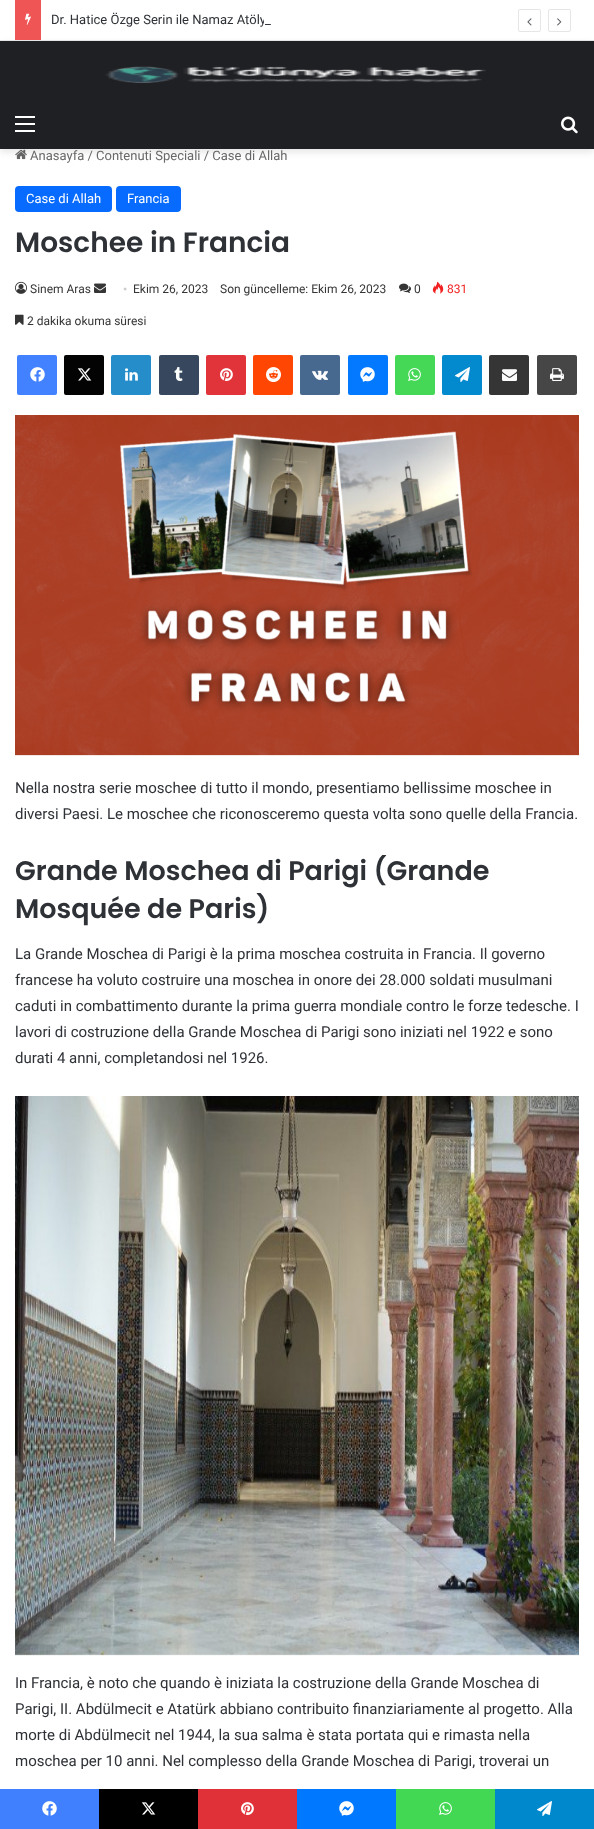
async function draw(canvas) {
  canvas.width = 594
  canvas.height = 1829
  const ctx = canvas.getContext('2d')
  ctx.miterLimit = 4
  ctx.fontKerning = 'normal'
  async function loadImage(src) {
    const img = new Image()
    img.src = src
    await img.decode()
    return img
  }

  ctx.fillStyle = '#fff'
  ctx.fillRect(0, 0, 594, 1829)
  ctx.drawImage(await loadImage('image5.png'), 15, 149, 12, 11)
  ctx.fillStyle = '#0000001a'
  ctx.filter = 'blur(3.5px)'
  ctx.beginPath()
  ctx.rect(0, 44, 594, 108)
  ctx.fill()
  ctx.filter = 'none'
  ctx.fillStyle = '#e6e6e6'
  ctx.fillRect(0, 40, 594, 1)
  ctx.fillStyle = '#f05555'
  ctx.fillRect(15, 0, 26, 40)
  ctx.drawImage(await loadImage('image0.png'), 25, 13, 6, 12)
  ctx.font = '13px Roboto'
  ctx.fillStyle = '#2e3136'
  ctx.fillText('Dr. Hatice Özge Serin ile Namaz Atöly', 51, 24)
  ctx.fillStyle = '#fff'
  ctx.fillRect(264, 17, 2, 6)
  ctx.fillStyle = '#2e3136'
  ctx.fillText('_', 265, 24)
  ctx.beginPath()
  ctx.roundRect(518.5, 9.5, 22, 22, 1.5)
  ctx.strokeStyle = '#e6e6e6'
  ctx.stroke()
  ctx.drawImage(await loadImage('image1.png'), 527, 18, 5, 8)
  ctx.beginPath()
  ctx.roundRect(548.5, 9.5, 22, 22, 1.5)
  ctx.stroke()
  ctx.drawImage(await loadImage('image2.png'), 557, 18, 5, 8)
  ctx.fillStyle = '#1f2024'
  ctx.fillRect(0, 41, 594, 108)
  ctx.drawImage(await loadImage('image3.png'), 105, 66, 381, 17)
  ctx.fillStyle = '#fff'
  ctx.fillRect(15, 123, 20, 2)
  ctx.fillRect(15, 116, 20, 2)
  ctx.fillRect(15, 130, 20, 2)
  ctx.drawImage(await loadImage('image4.png'), 561, 116, 17, 18)
  ctx.fillStyle = '#686868'
  ctx.fillText('Anasayfa / Contenuti Speciali / Case di Allah', 30, 160)
  ctx.fillStyle = '#086bff'
  ctx.beginPath()
  ctx.roundRect(15, 186, 97, 26, 4)
  ctx.fill()
  ctx.fillStyle = '#fff'
  ctx.fillText('Case di Allah', 26, 203)
  ctx.fillStyle = '#086bff'
  ctx.beginPath()
  ctx.roundRect(116, 186, 65, 26, 4)
  ctx.fill()
  ctx.fillStyle = '#fff'
  ctx.fillText('Francia', 127, 203)
  ctx.font = '600 28px Poppins'
  ctx.fillStyle = '#2e3136'
  ctx.fillText('Moschee in Francia', 15, 252)
  ctx.drawImage(await loadImage('image6.png'), 399, 283, 12, 10)
  ctx.font = '12px Roboto'
  ctx.fillStyle = '#353535'
  ctx.fillText('0', 414, 293)
  ctx.drawImage(await loadImage('image7.png'), 432, 281, 12, 13)
  ctx.fillStyle = '#f12020'
  ctx.fillText('831', 447, 293)
  ctx.drawImage(await loadImage('image8.png'), 15, 314, 9, 11)
  ctx.fillStyle = '#353535'
  ctx.fillText('2 dakika okuma süresi', 27, 325)
  ctx.drawImage(await loadImage('image9.png'), 15, 281, 12, 13)
  ctx.fillText('Sinem Aras', 30, 293)
  ctx.drawImage(await loadImage('image10.png'), 94, 283, 12, 10)
  ctx.font = '12px Liberation Serif'
  ctx.fillStyle = '#cdcdcd'
  ctx.fillText('•', 123, 293)
  ctx.font = '12px Roboto'
  ctx.fillStyle = '#353535'
  ctx.fillText('Ekim 26, 2023', 133, 293)
  ctx.fillText('Son güncelleme: Ekim 26, 2023', 220, 293)
  ctx.fillStyle = '#4281ff'
  ctx.beginPath()
  ctx.roundRect(17, 355, 40, 40, 2)
  ctx.fill()
  ctx.drawImage(await loadImage('image11.png'), 30, 367, 15, 15)
  ctx.fillStyle = '#030303'
  ctx.beginPath()
  ctx.roundRect(64, 355, 40, 40, 2)
  ctx.fill()
  ctx.drawImage(await loadImage('image12.png'), 77, 368, 15, 13)
  ctx.fillStyle = '#258dc9'
  ctx.beginPath()
  ctx.roundRect(111, 355, 40, 40, 2)
  ctx.fill()
  ctx.drawImage(await loadImage('image13.png'), 125, 368, 13, 13)
  ctx.fillStyle = '#37485e'
  ctx.beginPath()
  ctx.roundRect(159, 355, 40, 40, 2)
  ctx.fill()
  ctx.drawImage(await loadImage('image14.png'), 174, 367, 9, 14)
  ctx.fillStyle = '#e1333a'
  ctx.beginPath()
  ctx.roundRect(206, 355, 40, 40, 2)
  ctx.fill()
  ctx.drawImage(await loadImage('image15.png'), 220, 368, 13, 13)
  ctx.fillStyle = '#ff4703'
  ctx.beginPath()
  ctx.roundRect(253, 355, 40, 40, 2)
  ctx.fill()
  ctx.drawImage(await loadImage('image16.png'), 266, 367, 15, 16)
  ctx.fillStyle = '#47688f'
  ctx.beginPath()
  ctx.roundRect(300, 355, 40, 40, 2)
  ctx.fill()
  ctx.drawImage(await loadImage('image17.png'), 312, 370, 16, 10)
  ctx.fillStyle = '#0379ff'
  ctx.beginPath()
  ctx.roundRect(348, 355, 40, 40, 2)
  ctx.fill()
  ctx.drawImage(await loadImage('image18.png'), 360, 367, 15, 15)
  ctx.fillStyle = '#45d856'
  ctx.beginPath()
  ctx.roundRect(395, 355, 40, 40, 2)
  ctx.fill()
  ctx.drawImage(await loadImage('image19.png'), 408, 368, 13, 13)
  ctx.fillStyle = '#0389cd'
  ctx.beginPath()
  ctx.roundRect(442, 355, 40, 40, 2)
  ctx.fill()
  ctx.drawImage(await loadImage('image20.png'), 455, 367, 15, 15)
  ctx.fillStyle = '#353535'
  ctx.beginPath()
  ctx.roundRect(489, 355, 40, 40, 2)
  ctx.fill()
  ctx.drawImage(await loadImage('image21.png'), 502, 369, 15, 12)
  ctx.fillStyle = '#464646'
  ctx.beginPath()
  ctx.roundRect(537, 355, 40, 40, 2)
  ctx.fill()
  ctx.drawImage(await loadImage('image22.png'), 550, 368, 14, 13)
  ctx.drawImage(await loadImage('image23.png'), 15, 415, 564, 341)
  ctx.font = '15px Roboto'
  ctx.fillStyle = '#2e3136'
  ctx.fillText('Nella nostra serie moschee di tutto il mondo, presentiamo bellissime moschee in', 15, 793)
  ctx.fillText('diversi Paesi. Le moschee che riconosceremo questa volta sono quelle della Francia.', 15, 819)
  ctx.font = '600 27px Poppins'
  ctx.fillText('Grande Moschea di Parigi (Grande', 15, 880)
  ctx.fillText('Mosquée de Paris)', 15, 918)
  ctx.font = '15px Roboto'
  ctx.fillText('La Grande Moschea di Parigi è la prima moschea costruita in Francia. Il governo', 15, 959)
  ctx.fillText('francese ha voluto costruire una moschea in onore dei 28.000 soldati musulmani', 15, 985)
  ctx.fillText('caduti in combattimento durante la prima guerra mondiale contro le forze tedesche. I', 15, 1011)
  ctx.fillText('lavori di costruzione della Grande Moschea di Parigi sono iniziati nel 1922 e sono', 15, 1037)
  ctx.fillText('durati 4 anni, completandosi nel 1926.', 15, 1063)
  ctx.drawImage(await loadImage('image24.png'), 15, 1096, 564, 560)
  ctx.fillText('In Francia, è noto che quando è iniziata la costruzione della Grande Moschea di', 15, 1688)
  ctx.fillText('Parigi, II. Abdülmecit e Atatürk abbiano contribuito finanziariamente al progetto. Alla', 15, 1714)
  ctx.fillText('morte di Abdülmecit nel 1944, la sua salma è stata portata qui e rimasta nella', 15, 1740)
  ctx.fillText('moschea per 10 anni. Nel complesso della Grande Moschea di Parigi, troverai un', 15, 1766)
  ctx.fillStyle = '#4080ff'
  ctx.fillRect(0, 1789, 99, 40)
  ctx.drawImage(await loadImage('image25.png'), 42, 1801, 15, 15)
  ctx.fillStyle = '#000'
  ctx.fillRect(99, 1789, 99, 40)
  ctx.drawImage(await loadImage('image26.png'), 141, 1802, 15, 13)
  ctx.fillStyle = '#e13138'
  ctx.fillRect(198, 1789, 99, 40)
  ctx.drawImage(await loadImage('image27.png'), 241, 1802, 13, 13)
  ctx.fillStyle = '#0078ff'
  ctx.fillRect(297, 1789, 99, 40)
  ctx.drawImage(await loadImage('image28.png'), 339, 1801, 15, 15)
  ctx.fillStyle = '#43d854'
  ctx.fillRect(396, 1789, 99, 40)
  ctx.drawImage(await loadImage('image29.png'), 439, 1802, 13, 13)
  ctx.fillStyle = '#08c'
  ctx.fillRect(495, 1789, 99, 40)
  ctx.drawImage(await loadImage('image30.png'), 537, 1801, 15, 15)
}

draw(document.querySelector('canvas'))
